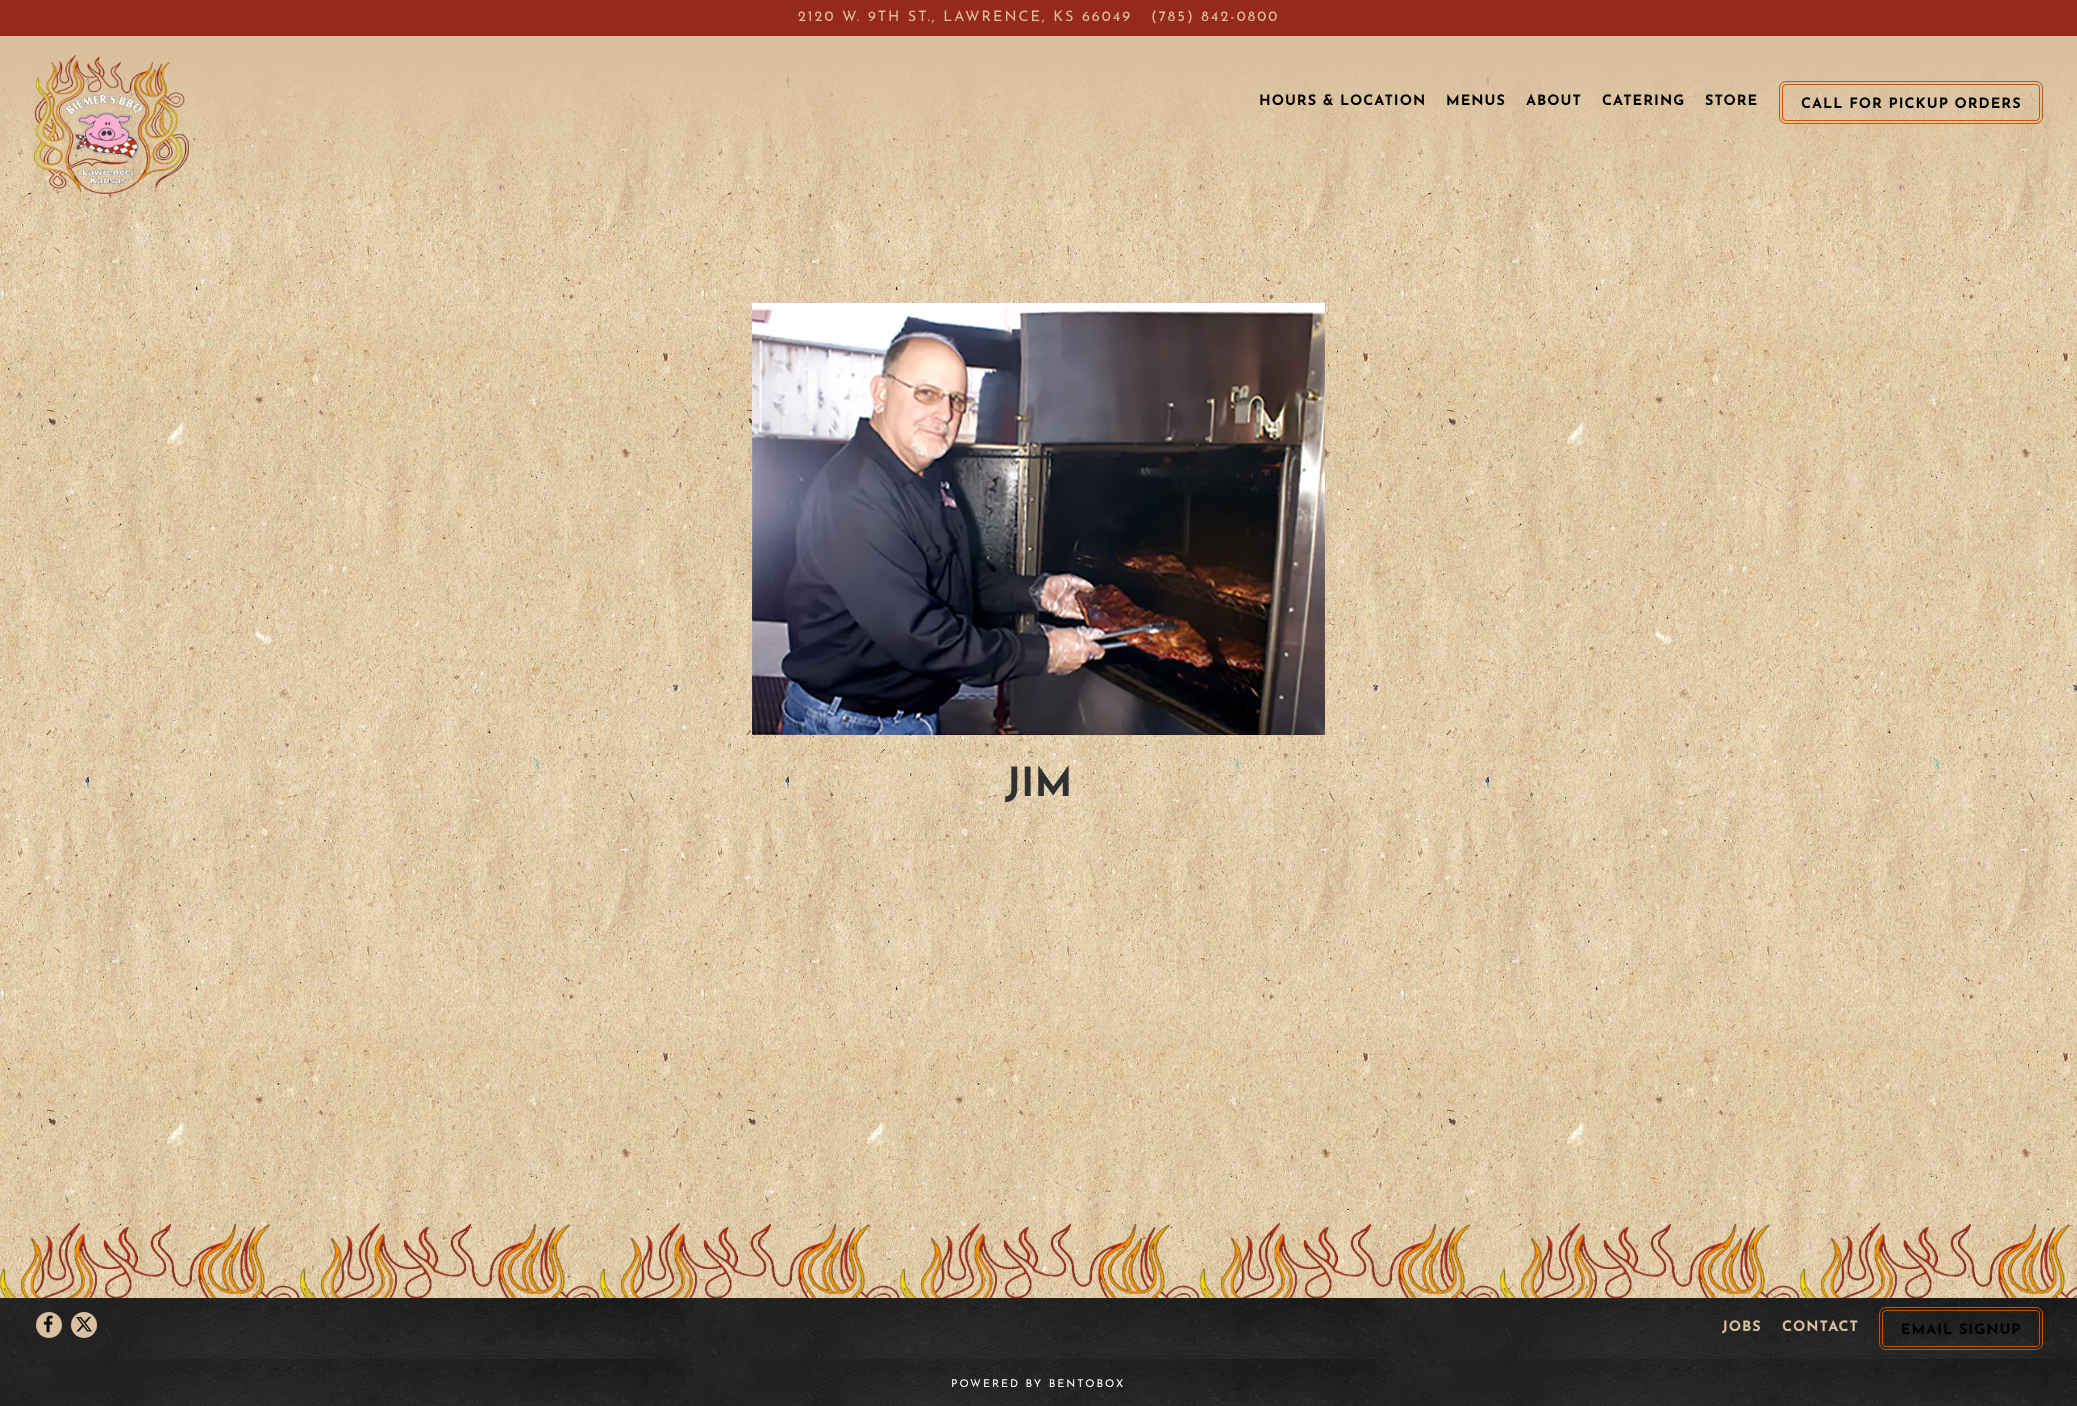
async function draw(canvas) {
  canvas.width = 2077
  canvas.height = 1406
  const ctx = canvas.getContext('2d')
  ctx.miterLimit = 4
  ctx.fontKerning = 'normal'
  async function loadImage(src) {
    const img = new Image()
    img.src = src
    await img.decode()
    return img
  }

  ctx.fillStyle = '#fff'
  ctx.fillRect(0, 0, 2077, 1406)
  ctx.drawImage(await loadImage('image0.png'), 0, 36, 2077, 1262)
  ctx.fillStyle = '#962918'
  ctx.fillRect(0, 0, 2077, 36)
  ctx.letterSpacing = '2px'
  ctx.font = '14.4px Josefin Sans'
  ctx.fillStyle = '#dac09d'
  ctx.fillText('2120 W. 9TH ST., LAWRENCE, KS 66049', 798, 21)
  ctx.fillText('(785) 842-0800', 1151, 21)
  ctx.drawImage(await loadImage('image1.png'), 34, 55, 155, 139)
  ctx.letterSpacing = '1px'
  ctx.font = 'bold 14.4px Josefin Sans'
  ctx.fillStyle = '#000'
  ctx.fillText('HOURS & LOCATION', 1259, 105)
  ctx.fillText('MENUS', 1446, 105)
  ctx.fillText('ABOUT', 1526, 105)
  ctx.fillText('CATERING', 1602, 105)
  ctx.fillText('STORE', 1705, 105)
  ctx.beginPath()
  ctx.roundRect(1779.5, 81.5, 263, 42, 6.5)
  ctx.strokeStyle = '#c05800'
  ctx.stroke()
  ctx.beginPath()
  ctx.roundRect(1782.5, 84.5, 257, 36, 3.5)
  ctx.stroke()
  ctx.fillText('CALL FOR PICKUP ORDERS', 1801, 108)
  ctx.drawImage(await loadImage('image2.png'), 752, 303, 573, 432)
  ctx.letterSpacing = '0px'
  ctx.font = 'bold 40px Josefin Sans'
  ctx.fillStyle = '#303030'
  ctx.fillText('JIM', 1005, 796)
  ctx.drawImage(await loadImage('image3.png'), 0, 1223, 2077, 75)
  ctx.fillStyle = '#111'
  ctx.fillRect(0, 1298, 2077, 108)
  ctx.drawImage(await loadImage('image4.png'), 0, 1298, 2077, 61)
  ctx.fillStyle = '#dac09d'
  ctx.beginPath()
  ctx.arc(49, 1325, 13, 0, 2 * Math.PI)
  ctx.fill()
  ctx.drawImage(await loadImage('image5.png'), 43, 1315, 10, 18)
  ctx.beginPath()
  ctx.arc(84, 1325, 13, 0, 2 * Math.PI)
  ctx.fill()
  ctx.drawImage(await loadImage('image6.png'), 76, 1316, 16, 16)
  ctx.letterSpacing = '1px'
  ctx.font = 'bold 14.4px Josefin Sans'
  ctx.fillText('JOBS', 1722, 1331)
  ctx.fillText('CONTACT', 1782, 1331)
  ctx.beginPath()
  ctx.roundRect(1879.5, 1307.5, 163, 42, 6.5)
  ctx.stroke()
  ctx.beginPath()
  ctx.roundRect(1882.5, 1310.5, 157, 36, 3.5)
  ctx.stroke()
  ctx.fillStyle = '#000'
  ctx.fillText('EMAIL SIGNUP', 1901, 1334)
  ctx.drawImage(await loadImage('image7.png'), 0, 1359, 2077, 47)
  ctx.letterSpacing = '2px'
  ctx.font = '10.75px Josefin Sans'
  ctx.fillStyle = '#fff'
  ctx.fillText('POWERED BY BENTOBOX', 951, 1387)
}

draw(document.querySelector('canvas'))
